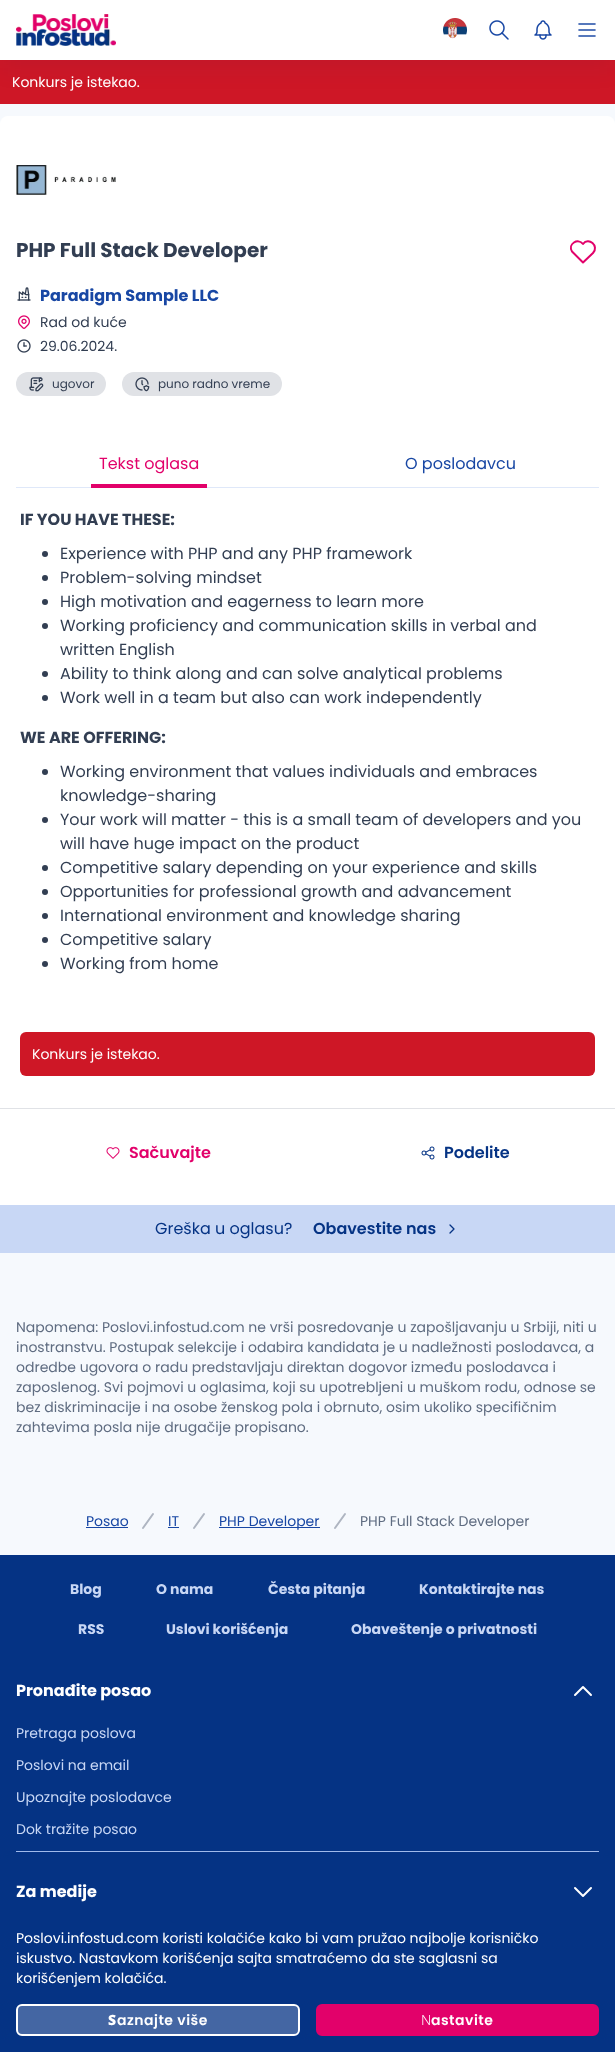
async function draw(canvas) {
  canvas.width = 615
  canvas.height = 2052
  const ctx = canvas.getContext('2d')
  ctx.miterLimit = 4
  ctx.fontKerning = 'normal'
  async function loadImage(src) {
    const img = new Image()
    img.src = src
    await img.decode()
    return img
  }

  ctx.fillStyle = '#f6f9fd'
  ctx.fillRect(0, 0, 615, 2052)
  ctx.fillStyle = '#ce1726'
  ctx.fillRect(0, 60, 615, 44)
  ctx.fillStyle = '#0020620f'
  ctx.filter = 'blur(12px)'
  ctx.beginPath()
  ctx.rect(0, 8, 615, 60)
  ctx.fill()
  ctx.filter = 'none'
  ctx.fillStyle = '#fff'
  ctx.fillRect(0, 0, 615, 60)
  ctx.drawImage(await loadImage('image0.png'), 16, 14, 100, 32)
  ctx.drawImage(await loadImage('image1.png'), 443, 18, 24, 21)
  ctx.drawImage(await loadImage('image2.png'), 489, 20, 20, 20)
  ctx.drawImage(await loadImage('image3.png'), 534, 20, 18, 20)
  ctx.drawImage(await loadImage('image4.png'), 578, 23, 18, 14)
  ctx.font = '14px Poppins'
  ctx.fillText('Konkurs je istekao.', 12, 87)
  ctx.beginPath()
  ctx.roundRect(0, 116, 615, 328, [8, 8, 0, 0])
  ctx.fill()
  ctx.drawImage(await loadImage('image5.png'), 16, 165, 100, 30)
  ctx.font = 'bold 20px Poppins'
  ctx.fillStyle = '#323e52'
  ctx.fillText('PHP Full Stack Developer', 16, 257)
  ctx.beginPath()
  ctx.moveTo(593, 253)
  ctx.lineTo(583, 262.5)
  ctx.lineTo(572, 251.5)
  ctx.bezierCurveTo(567.5, 244, 578, 237.5, 583, 244)
  ctx.bezierCurveTo(588.5, 236.5, 599.5, 246, 593, 253)
  ctx.strokeStyle = '#e2016a'
  ctx.lineWidth = 2
  ctx.lineCap = 'round'
  ctx.lineJoin = 'round'
  ctx.stroke()
  ctx.drawImage(await loadImage('image6.png'), 17, 287, 14, 14)
  ctx.font = 'bold 16px Poppins'
  ctx.fillStyle = '#1847a4'
  ctx.fillText('Paradigm Sample LLC', 40, 301)
  ctx.drawImage(await loadImage('image7.png'), 18, 315, 12, 14)
  ctx.font = '14px Poppins'
  ctx.fillStyle = '#323e52'
  ctx.fillText('Rad od kuće', 40, 327)
  ctx.drawImage(await loadImage('image8.png'), 17, 339, 14, 14)
  ctx.fillText('29.06.2024.', 40, 351)
  ctx.fillStyle = '#e0e2e6'
  ctx.beginPath()
  ctx.roundRect(16, 372, 90, 24, 12)
  ctx.fill()
  ctx.drawImage(await loadImage('image9.png'), 29, 377, 15, 15)
  ctx.font = '12px Poppins'
  ctx.fillStyle = '#323e52'
  ctx.fillText('ugovor', 52, 388)
  ctx.fillStyle = '#e0e2e6'
  ctx.beginPath()
  ctx.roundRect(122, 372, 160, 24, 12)
  ctx.fill()
  ctx.drawImage(await loadImage('image10.png'), 135, 377, 15, 15)
  ctx.fillStyle = '#323e52'
  ctx.fillText('puno radno vreme', 158, 388)
  ctx.fillStyle = '#fff'
  ctx.fillRect(0, 444, 615, 664)
  ctx.font = '16px Poppins'
  ctx.fillStyle = '#e2016a'
  ctx.fillText('Tekst oglasa', 99, 469)
  ctx.fillStyle = '#1847a4'
  ctx.fillText('O poslodavcu', 405, 469)
  ctx.fillStyle = '#dfe8f9'
  ctx.fillRect(16, 487, 583, 1)
  ctx.fillStyle = '#e2016a'
  ctx.fillRect(91, 484, 116, 4)
  ctx.font = 'bold 16px Poppins'
  ctx.fillStyle = '#323e52'
  ctx.fillText('IF YOU HAVE THESE:', 20, 525)
  ctx.beginPath()
  ctx.arc(45, 554, 3, 0, 2 * Math.PI)
  ctx.fill()
  ctx.font = '16px Poppins'
  ctx.fillText('Experience with PHP and any PHP framework', 60, 559)
  ctx.beginPath()
  ctx.arc(45, 578, 3, 0, 2 * Math.PI)
  ctx.fill()
  ctx.fillText('Problem-solving mindset', 60, 583)
  ctx.beginPath()
  ctx.arc(45, 602, 3, 0, 2 * Math.PI)
  ctx.fill()
  ctx.fillText('High motivation and eagerness to learn more', 60, 607)
  ctx.beginPath()
  ctx.arc(45, 626, 3, 0, 2 * Math.PI)
  ctx.fill()
  ctx.fillText('Working proficiency and communication skills in verbal and', 60, 631)
  ctx.fillText('written English', 60, 655)
  ctx.beginPath()
  ctx.arc(45, 674, 3, 0, 2 * Math.PI)
  ctx.fill()
  ctx.fillText('Ability to think along and can solve analytical problems', 60, 679)
  ctx.beginPath()
  ctx.arc(45, 698, 3, 0, 2 * Math.PI)
  ctx.fill()
  ctx.fillText('Work well in a team but also can work independently', 60, 703)
  ctx.font = 'bold 16px Poppins'
  ctx.fillText('WE ARE OFFERING:', 20, 743)
  ctx.beginPath()
  ctx.arc(45, 772, 3, 0, 2 * Math.PI)
  ctx.fill()
  ctx.font = '16px Poppins'
  ctx.fillText('Working environment that values individuals and embraces', 60, 777)
  ctx.fillText('knowledge-sharing', 60, 801)
  ctx.beginPath()
  ctx.arc(45, 820, 3, 0, 2 * Math.PI)
  ctx.fill()
  ctx.fillText('Your work will matter - this is a small team of developers and you', 60, 825)
  ctx.fillText('will have huge impact on the product', 60, 849)
  ctx.beginPath()
  ctx.arc(45, 868, 3, 0, 2 * Math.PI)
  ctx.fill()
  ctx.fillText('Competitive salary depending on your experience and skills', 60, 873)
  ctx.beginPath()
  ctx.arc(45, 892, 3, 0, 2 * Math.PI)
  ctx.fill()
  ctx.fillText('Opportunities for professional growth and advancement', 60, 897)
  ctx.beginPath()
  ctx.arc(45, 916, 3, 0, 2 * Math.PI)
  ctx.fill()
  ctx.fillText('International environment and knowledge sharing', 60, 921)
  ctx.beginPath()
  ctx.arc(45, 940, 3, 0, 2 * Math.PI)
  ctx.fill()
  ctx.fillText('Competitive salary', 60, 945)
  ctx.beginPath()
  ctx.arc(45, 964, 3, 0, 2 * Math.PI)
  ctx.fill()
  ctx.fillText('Working from home', 60, 969)
  ctx.fillStyle = '#ce1726'
  ctx.beginPath()
  ctx.roundRect(20, 1032, 575, 44, 6)
  ctx.fill()
  ctx.font = '14px Poppins'
  ctx.fillStyle = '#fff'
  ctx.fillText('Konkurs je istekao.', 32, 1059)
  ctx.fillRect(0, 1109, 615, 96)
  ctx.fillStyle = '#e0e2e6'
  ctx.fillRect(0, 1108, 615, 1)
  ctx.drawImage(await loadImage('image11.png'), 106, 1147, 14, 12)
  ctx.font = '600 16px Poppins'
  ctx.fillStyle = '#e2016a'
  ctx.fillText('Sačuvajte', 129, 1158)
  ctx.drawImage(await loadImage('image12.png'), 421, 1146, 14, 14)
  ctx.fillStyle = '#053384'
  ctx.fillText('Podelite', 444, 1158)
  ctx.fillStyle = '#c8d7f5'
  ctx.fillRect(0, 1205, 615, 48)
  ctx.font = '16px Poppins'
  ctx.fillStyle = '#053384'
  ctx.fillText('Greška u oglasu?', 155, 1234)
  ctx.font = '600 16px Poppins'
  ctx.fillText('Obavestite nas', 313, 1234)
  ctx.beginPath()
  ctx.moveTo(450, 1225)
  ctx.lineTo(454, 1229)
  ctx.lineTo(450, 1233)
  ctx.strokeStyle = '#053384'
  ctx.lineWidth = 1.3
  ctx.stroke()
  ctx.font = '14px Poppins'
  ctx.fillStyle = '#5f6c81'
  ctx.fillText('Napomena: Poslovi.infostud.com ne vrši posredovanje u zapošljavanju u Srbiji, niti u', 16, 1332)
  ctx.fillText('inostranstvu. Postupak selekcije i odabira kandidata je u nadležnosti poslodavca, a', 16, 1352)
  ctx.fillText('odredbe ugovora o radu predstavljaju direktan dogovor između poslodavca i', 16, 1372)
  ctx.fillText('zaposlenog. Svi pojmovi u oglasima, koji su upotrebljeni u muškom rodu, odnose se', 16, 1392)
  ctx.fillText('bez diskriminacije i na osobe ženskog pola i obrnuto, osim ukoliko specifičnim', 16, 1412)
  ctx.fillText('zahtevima posla nije drugačije propisano.', 16, 1432)
  ctx.fillStyle = '#1847a4'
  ctx.fillText('Posao', 86, 1526)
  ctx.fillRect(86, 1527, 42, 1)
  ctx.fillText('IT', 168, 1526)
  ctx.fillRect(168, 1527, 11, 1)
  ctx.beginPath()
  ctx.moveTo(153, 1514)
  ctx.lineTo(143, 1528)
  ctx.moveTo(204, 1514)
  ctx.lineTo(194, 1528)
  ctx.strokeStyle = '#aeb5c1'
  ctx.lineWidth = 2
  ctx.stroke()
  ctx.fillRect(219, 1527, 101, 1)
  ctx.fillText('PHP Developer', 219, 1526)
  ctx.beginPath()
  ctx.moveTo(345, 1514)
  ctx.lineTo(335, 1528)
  ctx.stroke()
  ctx.fillStyle = '#5f6c81'
  ctx.fillText('PHP Full Stack Developer', 360, 1526)
  ctx.fillStyle = '#053384'
  ctx.fillRect(0, 1555, 615, 497)
  ctx.font = 'bold 14px Poppins'
  ctx.fillStyle = '#c8d7f5'
  ctx.fillText('Blog', 70, 1594)
  ctx.fillText('O nama', 156, 1594)
  ctx.fillText('Česta pitanja', 268, 1594)
  ctx.fillText('Kontaktirajte nas', 419, 1594)
  ctx.fillText('RSS', 78, 1634)
  ctx.fillText('Uslovi korišćenja', 166, 1634)
  ctx.fillText('Obaveštenje o privatnosti', 351, 1634)
  ctx.font = 'bold 16px Poppins'
  ctx.fillStyle = '#fff'
  ctx.fillText('Pronađite posao', 16, 1696)
  ctx.beginPath()
  ctx.moveTo(591, 1695)
  ctx.lineTo(583, 1687)
  ctx.lineTo(575, 1695)
  ctx.strokeStyle = '#fff'
  ctx.stroke()
  ctx.font = '14px Poppins'
  ctx.fillStyle = '#c8d7f5'
  ctx.fillText('Pretraga poslova', 16, 1738)
  ctx.fillText('Poslovi na email', 16, 1770)
  ctx.fillText('Upoznajte poslodavce', 16, 1802)
  ctx.fillText('Dok tražite posao', 16, 1834)
  ctx.fillStyle = '#a1baeb'
  ctx.fillRect(16, 1851, 583, 1)
  ctx.font = 'bold 16px Poppins'
  ctx.fillStyle = '#fff'
  ctx.fillText('Za medije', 16, 1897)
  ctx.beginPath()
  ctx.moveTo(575, 1888)
  ctx.lineTo(583, 1896)
  ctx.lineTo(591, 1888)
  ctx.stroke()
  ctx.font = '14px Poppins'
  ctx.fillText('Poslovi.infostud.com koristi kolačiće kako bi vam pružao najbolje korisničko', 16, 1943)
  ctx.fillText('iskustvo. Nastavkom korišćenja sajta smatraćemo da ste saglasni sa', 16, 1963)
  ctx.fillText('korišćenjem kolačića.', 16, 1983)
  ctx.fillStyle = '#4466a3'
  ctx.beginPath()
  ctx.roundRect(17, 2005, 282, 30, 5)
  ctx.fill()
  ctx.lineJoin = 'miter'
  ctx.stroke()
  ctx.letterSpacing = '0.5px'
  ctx.font = '900 14px Noto Sans'
  ctx.fillStyle = '#fff'
  ctx.fillText('S', 108, 2025)
  ctx.font = '600 14px Poppins'
  ctx.fillText('aznajte više', 117, 2025)
  ctx.fillStyle = '#e2016a'
  ctx.beginPath()
  ctx.roundRect(317, 2005, 281, 30, 5)
  ctx.fill()
  ctx.strokeStyle = '#e2016a'
  ctx.stroke()
  ctx.font = '300 14px Noto Sans'
  ctx.fillStyle = '#fff'
  ctx.fillText('N', 421, 2025)
  ctx.font = '600 14px Poppins'
  ctx.fillText('astavite', 431, 2025)
}

draw(document.querySelector('canvas'))
